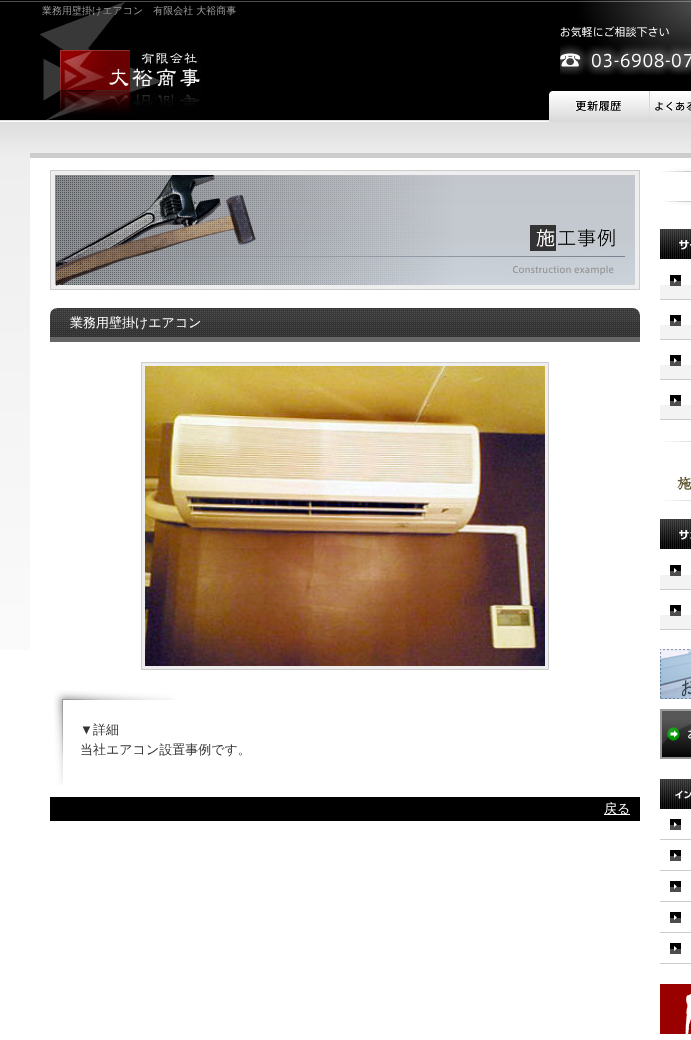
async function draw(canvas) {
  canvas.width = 691
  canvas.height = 1040
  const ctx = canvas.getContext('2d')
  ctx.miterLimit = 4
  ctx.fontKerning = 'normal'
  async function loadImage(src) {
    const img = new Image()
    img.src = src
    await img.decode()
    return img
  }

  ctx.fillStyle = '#fff'
  ctx.fillRect(0, 0, 691, 1040)
  ctx.drawImage(await loadImage('image0.png'), 0, 0, 691, 644)
  ctx.fillStyle = '#fafafa'
  ctx.fillRect(0, 644, 30, 6)
  ctx.drawImage(await loadImage('image1.png'), 39, 0, 652, 120)
  ctx.font = '500 10px WenQuanYi Zen Hei'
  ctx.fillStyle = '#999'
  ctx.fillText('業務用壁掛けエアコン　有限会社 大裕商事', 42, 14)
  ctx.drawImage(await loadImage('image2.png'), 60, 42, 142, 76)
  ctx.drawImage(await loadImage('image3.png'), 560, 26, 131, 49)
  ctx.drawImage(await loadImage('image4.png'), 549, 91, 142, 31)
  ctx.drawImage(await loadImage('image5.png'), 576, 100, 45, 11)
  ctx.drawImage(await loadImage('image6.png'), 655, 101, 36, 10)
  ctx.fillStyle = '#fff'
  ctx.fillRect(30, 158, 661, 486)
  ctx.fillStyle = '#ccc'
  ctx.fillRect(30, 153, 661, 5)
  ctx.drawImage(await loadImage('image7.png'), 50, 170, 590, 120)
  ctx.drawImage(await loadImage('image8.png'), 50, 308, 590, 34)
  ctx.font = '500 13px WenQuanYi Zen Hei'
  ctx.fillStyle = '#fff'
  ctx.fillText('業務用壁掛けエアコン', 70, 327)
  ctx.fillStyle = '#eee'
  ctx.beginPath()
  ctx.rect(141.5, 362.5, 407, 307)
  ctx.fill()
  ctx.strokeStyle = '#ccc'
  ctx.stroke()
  ctx.drawImage(await loadImage('image9.png'), 145, 366, 400, 300)
  ctx.drawImage(await loadImage('image10.png'), 54, 690, 121, 96)
  ctx.font = '13px Liberation Sans'
  ctx.fillStyle = '#333'
  ctx.fillText('▼', 80, 734)
  ctx.font = '500 13px WenQuanYi Zen Hei'
  ctx.fillText('詳細', 93, 734)
  ctx.fillText('当社エアコン設置事例です。', 80, 754)
  ctx.fillStyle = '#000'
  ctx.fillRect(50, 797, 590, 24)
  ctx.fillStyle = '#fff'
  ctx.fillRect(604, 814, 26, 1)
  ctx.fillText('戻る', 604, 813)
  ctx.drawImage(await loadImage('image11.png'), 663, 168, 28, 37)
  ctx.drawImage(await loadImage('image12.png'), 660, 171, 24, 31)
  ctx.drawImage(await loadImage('image13.png'), 660, 229, 31, 30)
  ctx.drawImage(await loadImage('image14.png'), 660, 275, 31, 25)
  ctx.drawImage(await loadImage('image14.png'), 660, 315, 31, 25)
  ctx.drawImage(await loadImage('image14.png'), 660, 355, 31, 25)
  ctx.drawImage(await loadImage('image15.png'), 660, 395, 31, 25)
  ctx.drawImage(await loadImage('image16.png'), 662, 441, 29, 60)
  ctx.drawImage(await loadImage('image17.png'), 677, 476, 14, 14)
  ctx.drawImage(await loadImage('image18.png'), 660, 519, 31, 30)
  ctx.drawImage(await loadImage('image14.png'), 660, 565, 31, 25)
  ctx.drawImage(await loadImage('image19.png'), 660, 605, 31, 25)
  ctx.drawImage(await loadImage('image20.png'), 660, 649, 31, 50)
  ctx.drawImage(await loadImage('image21.png'), 660, 709, 31, 50)
  ctx.drawImage(await loadImage('image22.png'), 660, 779, 31, 30)
  ctx.drawImage(await loadImage('image23.png'), 670, 819, 11, 11)
  ctx.fillStyle = '#ccc'
  ctx.fillRect(660, 839, 31, 1)
  ctx.drawImage(await loadImage('image23.png'), 670, 850, 11, 11)
  ctx.fillRect(660, 870, 31, 1)
  ctx.drawImage(await loadImage('image23.png'), 670, 881, 11, 11)
  ctx.fillRect(660, 901, 31, 1)
  ctx.drawImage(await loadImage('image23.png'), 670, 912, 11, 11)
  ctx.fillRect(660, 932, 31, 1)
  ctx.drawImage(await loadImage('image23.png'), 670, 943, 11, 11)
  ctx.fillRect(660, 963, 31, 1)
  ctx.drawImage(await loadImage('image24.png'), 660, 984, 31, 50)
}

draw(document.querySelector('canvas'))
